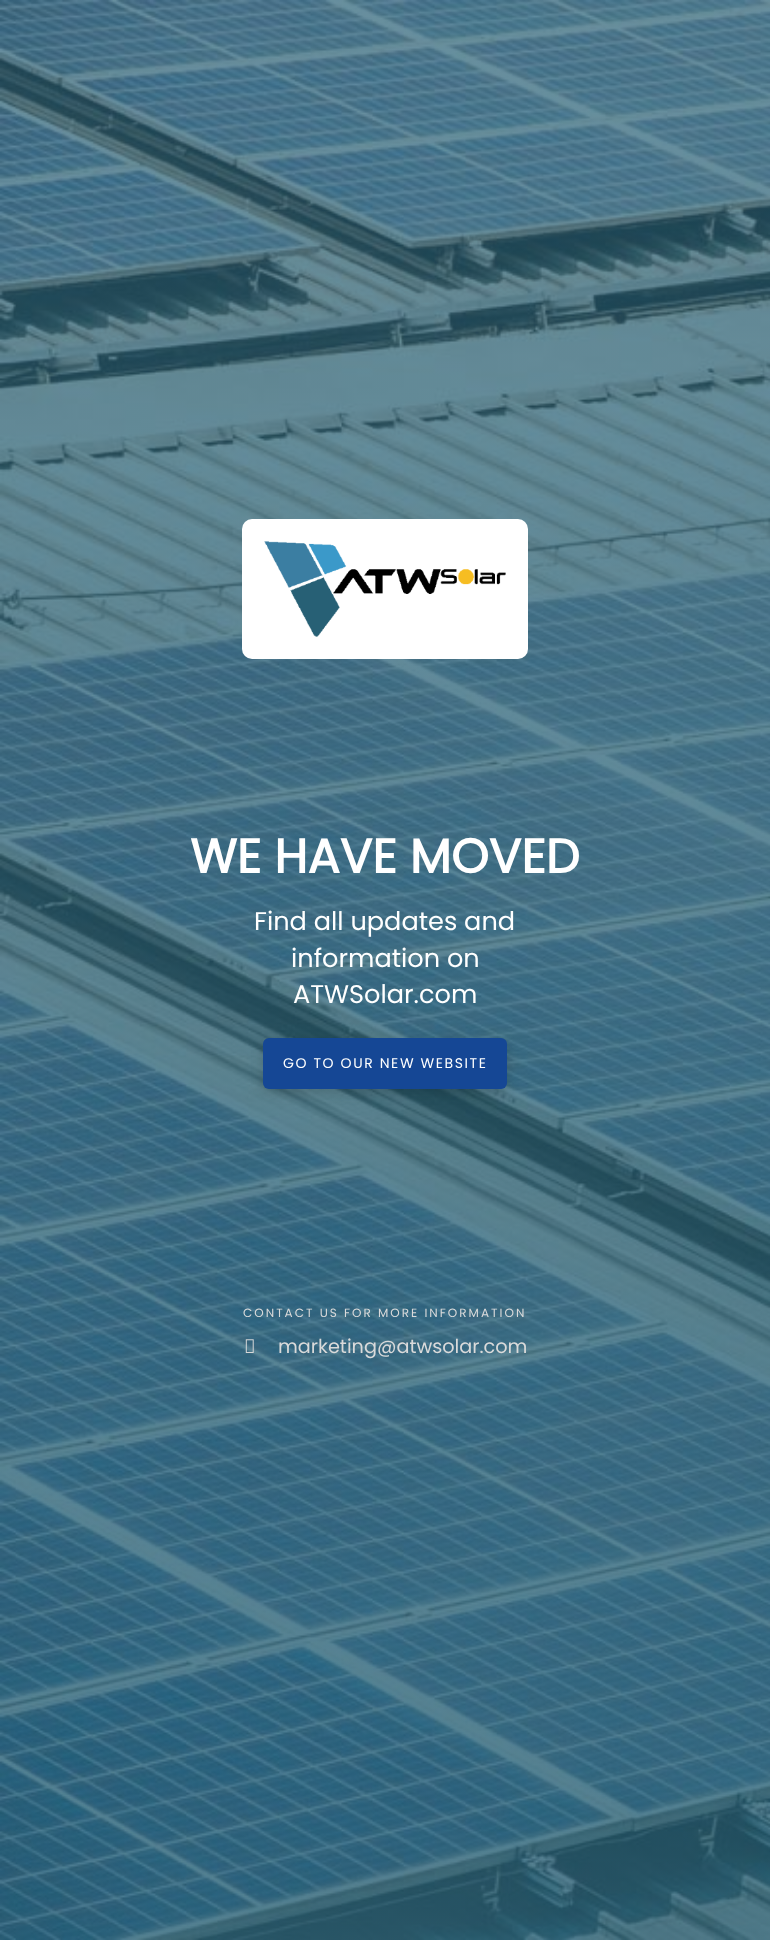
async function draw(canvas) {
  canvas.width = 770
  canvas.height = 1940
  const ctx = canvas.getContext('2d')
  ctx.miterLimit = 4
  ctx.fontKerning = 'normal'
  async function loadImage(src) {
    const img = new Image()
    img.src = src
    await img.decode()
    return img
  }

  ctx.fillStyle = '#fff'
  ctx.fillRect(0, 0, 770, 1940)
  ctx.drawImage(await loadImage('image0.png'), 0, 0, 770, 1940)
  ctx.beginPath()
  ctx.roundRect(242, 519, 286, 140, 10)
  ctx.fill()
  ctx.drawImage(await loadImage('image1.png'), 264, 541, 242, 96)
  ctx.font = 'bold 48px Poppins'
  ctx.fillText('WE HAVE MOVED', 190, 873)
  ctx.font = '25.6px Poppins'
  ctx.fillText('Find all updates and', 254, 930)
  ctx.fillText('information on', 291, 967)
  ctx.fillText('ATWSolar.com', 293, 1003)
  ctx.fillStyle = '#00000024'
  ctx.filter = 'blur(6px)'
  ctx.beginPath()
  ctx.roundRect(263, 1042, 244, 51, 6)
  ctx.fill()
  ctx.filter = 'none'
  ctx.fillStyle = '#154795'
  ctx.beginPath()
  ctx.roundRect(263, 1038, 244, 51, 6)
  ctx.fill()
  ctx.letterSpacing = '1.6px'
  ctx.font = '14px Poppins'
  ctx.fillStyle = '#fff'
  ctx.fillText('GO TO OUR NEW WEBSITE', 283, 1068)
  ctx.letterSpacing = '2px'
  ctx.font = '12px Poppins'
  ctx.fillStyle = '#dadada'
  ctx.fillText('CONTACT US FOR MORE INFORMATION', 243, 1317)
  ctx.drawImage(await loadImage('image2.png'), 245, 1339, 9, 14)
  ctx.letterSpacing = '0px'
  ctx.font = '19.25px Poppins'
  ctx.fillText('marketing@atwsolar.com', 278, 1353)
}

draw(document.querySelector('canvas'))
